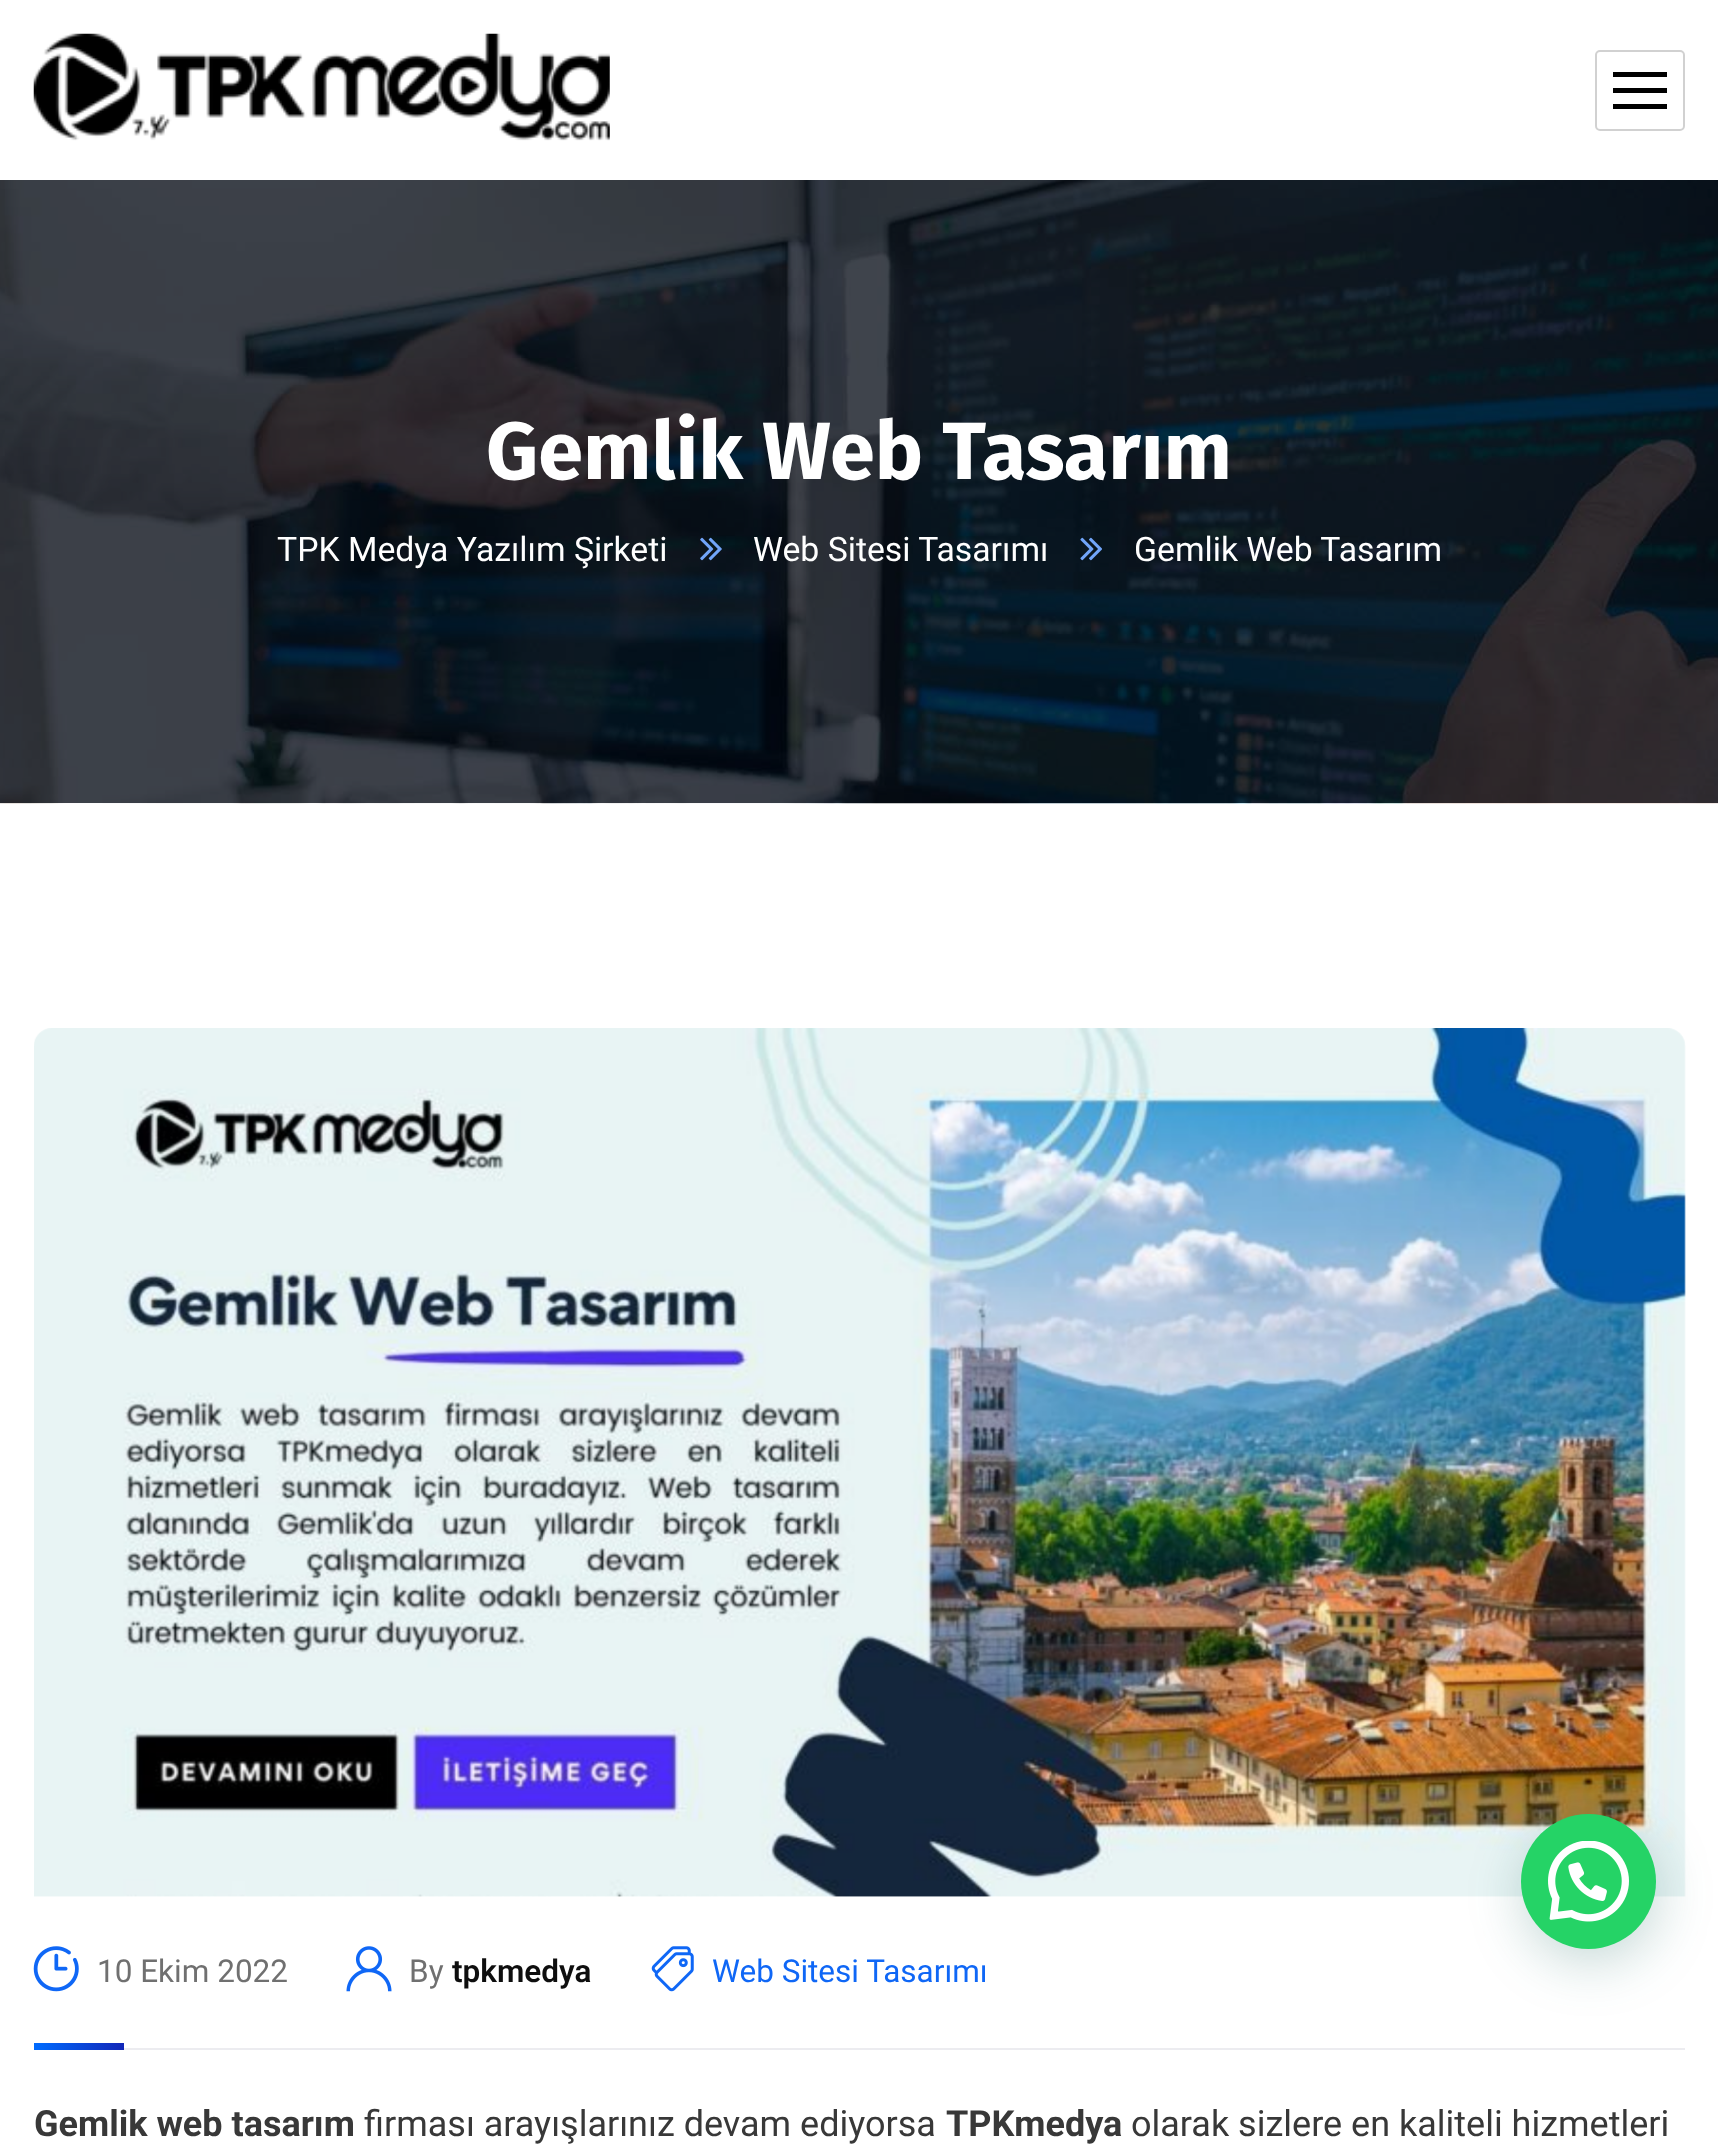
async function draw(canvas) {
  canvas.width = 1718
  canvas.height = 2151
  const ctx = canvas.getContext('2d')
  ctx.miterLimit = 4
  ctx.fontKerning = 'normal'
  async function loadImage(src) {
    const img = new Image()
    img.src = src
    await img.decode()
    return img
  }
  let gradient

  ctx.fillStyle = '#fff'
  ctx.fillRect(0, 0, 1718, 2151)
  ctx.drawImage(await loadImage('image0.png'), 33, 33, 577, 108)
  ctx.beginPath()
  ctx.roundRect(1596, 51, 88, 79, 4)
  ctx.strokeStyle = '#d1d1d1'
  ctx.lineWidth = 2
  ctx.stroke()
  ctx.fillStyle = '#000'
  ctx.fillRect(1613, 72, 54, 5)
  ctx.fillRect(1613, 88, 54, 5)
  ctx.fillRect(1613, 104, 54, 5)
  ctx.drawImage(await loadImage('image1.png'), 0, 180, 1718, 624)
  ctx.font = 'bold 81px Fira Sans'
  ctx.fillStyle = '#fff'
  ctx.fillText('Gemlik Web Tasarım', 486, 479)
  ctx.font = '33.75px Roboto'
  ctx.fillText('TPK Medya Yazılım Şirketi', 277, 561)
  ctx.drawImage(await loadImage('image2.png'), 700, 537, 22, 24)
  ctx.fillText('Web Sitesi Tasarımı', 753, 561)
  ctx.drawImage(await loadImage('image3.png'), 1080, 537, 22, 24)
  ctx.fillText('Gemlik Web Tasarım', 1134, 561)
  ctx.drawImage(await loadImage('image4.png'), 34, 1028, 1652, 869)
  ctx.fillStyle = '#ececf0'
  ctx.fillRect(124, 2048, 1561, 2)
  ctx.drawImage(await loadImage('image5.png'), 33, 1946, 46, 46)
  ctx.font = '31.5px Roboto'
  ctx.fillStyle = '#707070'
  ctx.fillText('10 Ekim 2022', 97, 1982)
  ctx.drawImage(await loadImage('image6.png'), 346, 1946, 46, 46)
  ctx.fillText('By', 409, 1982)
  ctx.font = '600 31.5px Roboto'
  ctx.fillStyle = '#0e0e0e'
  ctx.fillText('tpkmedya', 452, 1982)
  ctx.drawImage(await loadImage('image7.png'), 651, 1946, 43, 46)
  ctx.font = '31.5px Roboto'
  ctx.fillStyle = '#0f67f6'
  ctx.fillText('Web Sitesi Tasarımı', 712, 1982)
  gradient = ctx.createLinearGradient(34, 2046, 124, 2046)
  gradient.addColorStop(0, '#006cff')
  gradient.addColorStop(1, '#1227b8')
  ctx.fillStyle = gradient
  ctx.fillRect(34, 2043, 90, 7)
  ctx.font = 'bold 36px Roboto'
  ctx.fillStyle = '#383838'
  ctx.fillText('Gemlik web tasarım', 34, 2136)
  ctx.font = '36px Roboto'
  ctx.fillText('firması arayışlarınız devam ediyorsa', 364, 2136)
  ctx.font = 'bold 36px Roboto'
  ctx.fillText('TPKmedya', 946, 2136)
  ctx.font = '36px Roboto'
  ctx.fillText('olarak sizlere en kaliteli hizmetleri', 1131, 2136)
  ctx.fillStyle = '#075e543d'
  ctx.filter = 'blur(27px)'
  ctx.beginPath()
  ctx.roundRect(1523, 1827, 135, 135, 67.5)
  ctx.fill()
  ctx.filter = 'none'
  ctx.fillStyle = '#25d366'
  ctx.beginPath()
  ctx.arc(1588.5, 1881.5, 67.5, 0, 2 * Math.PI)
  ctx.fill()
  ctx.drawImage(await loadImage('image8.png'), 1548, 1841, 81, 81)
}

draw(document.querySelector('canvas'))
